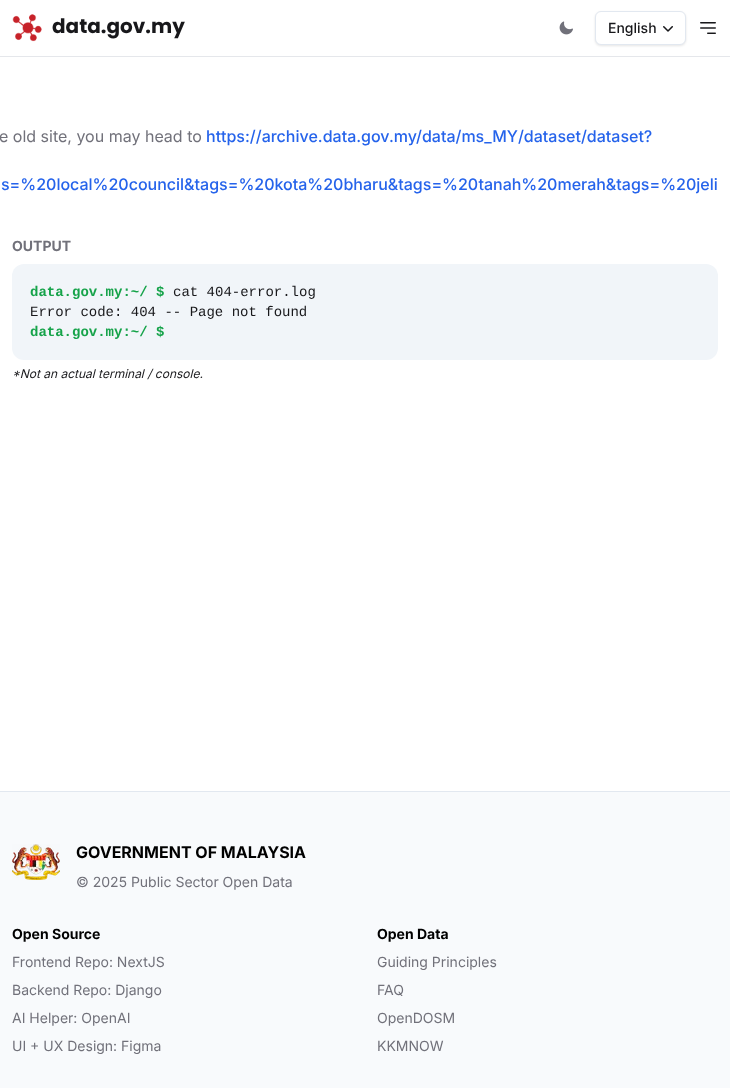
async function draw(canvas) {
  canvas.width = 730
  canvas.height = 1088
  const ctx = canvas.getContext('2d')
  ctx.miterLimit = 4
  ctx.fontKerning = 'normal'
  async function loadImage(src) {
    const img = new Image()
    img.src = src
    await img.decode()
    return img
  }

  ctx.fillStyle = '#fff'
  ctx.fillRect(0, 0, 730, 1088)
  ctx.fillStyle = '#e5e7eb'
  ctx.fillRect(0, 56, 730, 1)
  ctx.drawImage(await loadImage('image0.png'), 12, 14, 30, 28)
  ctx.font = 'bold 20px Poppins'
  ctx.fillStyle = '#18181b'
  ctx.fillText('data.gov.my', 52, 33)
  ctx.drawImage(await loadImage('image1.png'), 559, 21, 14, 14)
  ctx.fillStyle = '#0000001a'
  ctx.filter = 'blur(1px)'
  ctx.beginPath()
  ctx.roundRect(595, 12, 91, 34, 6)
  ctx.fill()
  ctx.filter = 'none'
  ctx.fillStyle = '#fff'
  ctx.beginPath()
  ctx.roundRect(595.5, 11.5, 90, 33, 5.5)
  ctx.fill()
  ctx.strokeStyle = '#e2e8f0'
  ctx.stroke()
  ctx.font = '500 14px Inter'
  ctx.fillStyle = '#18181b'
  ctx.fillText('English', 608, 33)
  ctx.drawImage(await loadImage('image2.png'), 663, 26, 10, 6)
  ctx.drawImage(await loadImage('image3.png'), 700, 22, 16, 12)
  ctx.font = '16px Inter'
  ctx.fillStyle = '#71717a'
  ctx.fillText('e old site, you may head to', -1, 142)
  ctx.font = '500 16px Inter'
  ctx.fillStyle = '#2563eb'
  ctx.fillText('https://archive.data.gov.my/data/ms_MY/dataset/dataset?', 206, 142)
  ctx.fillText('s=%20local%20council&tags=%20kota%20bharu&tags=%20tanah%20merah&tags=%20jeli', 1, 190)
  ctx.font = 'bold 14px Inter'
  ctx.fillStyle = '#71717a'
  ctx.fillText('OUTPUT', 12, 251)
  ctx.fillStyle = '#f1f5f9'
  ctx.beginPath()
  ctx.roundRect(12, 264, 706, 96, 12)
  ctx.fill()
  ctx.font = 'bold 14px Liberation Mono'
  ctx.fillStyle = '#16a34a'
  ctx.fillText('data.gov.my:~/ $', 30, 296)
  ctx.font = '14px Liberation Mono'
  ctx.fillStyle = '#18181b'
  ctx.fillText('cat 404-error.log', 173, 296)
  ctx.fillText('Error code: 404 -- Page not found', 30, 316)
  ctx.font = 'bold 14px Liberation Mono'
  ctx.fillStyle = '#16a34a'
  ctx.fillText('data.gov.my:~/ $', 30, 336)
  ctx.font = 'italic 12px Inter'
  ctx.fillStyle = '#18181b'
  ctx.fillText('*Not an actual terminal / console.', 12, 378)
  ctx.fillStyle = '#f8fafc'
  ctx.fillRect(0, 792, 730, 296)
  ctx.fillStyle = '#e2e8f0'
  ctx.fillRect(0, 791, 730, 1)
  ctx.drawImage(await loadImage('image4.png'), 12, 844, 48, 36)
  ctx.font = 'bold 16px Inter'
  ctx.fillStyle = '#000'
  ctx.fillText('GOVERNMENT OF MALAYSIA', 76, 858)
  ctx.font = '14px Inter'
  ctx.fillStyle = '#71717a'
  ctx.fillText('© 2025 Public Sector Open Data', 76, 887)
  ctx.font = 'bold 14px Inter'
  ctx.fillStyle = '#000'
  ctx.fillText('Open Source', 12, 939)
  ctx.font = '14px Inter'
  ctx.fillStyle = '#71717a'
  ctx.fillText('Frontend Repo: NextJS', 12, 967)
  ctx.fillText('Backend Repo: Django', 12, 995)
  ctx.fillText('AI Helper: OpenAI', 12, 1023)
  ctx.fillText('UI + UX Design: Figma', 12, 1051)
  ctx.font = 'bold 14px Inter'
  ctx.fillStyle = '#000'
  ctx.fillText('Open Data', 377, 939)
  ctx.font = '14px Inter'
  ctx.fillStyle = '#71717a'
  ctx.fillText('Guiding Principles', 377, 967)
  ctx.fillText('FAQ', 377, 995)
  ctx.fillText('OpenDOSM', 377, 1023)
  ctx.fillText('KKMNOW', 377, 1051)
}

draw(document.querySelector('canvas'))
